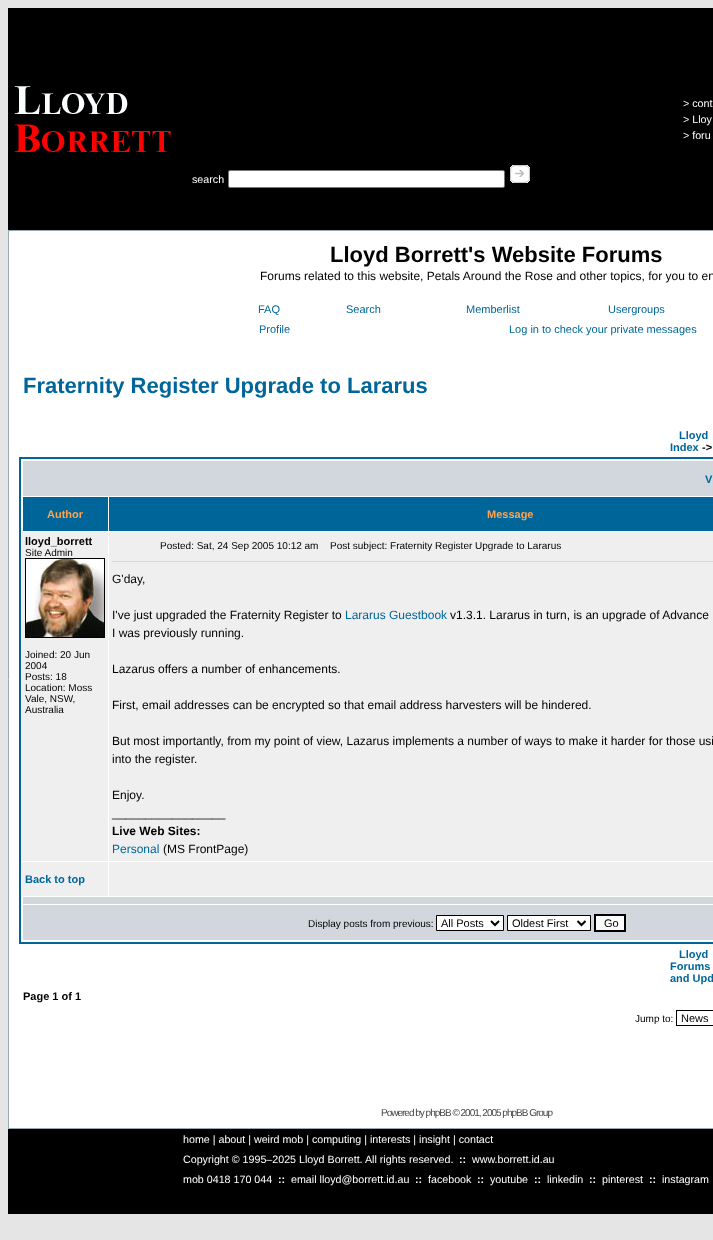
async function draw(canvas) {
  canvas.width = 713
  canvas.height = 1240
  const ctx = canvas.getContext('2d')
  ctx.miterLimit = 4
  ctx.fontKerning = 'normal'
  async function loadImage(src) {
    const img = new Image()
    img.src = src
    await img.decode()
    return img
  }

  ctx.fillStyle = '#e5e5e5'
  ctx.fillRect(0, 0, 713, 1240)
  ctx.fillStyle = '#000'
  ctx.fillRect(8, 8, 705, 222)
  ctx.drawImage(await loadImage('image0.png'), 14, 86, 157, 66)
  ctx.font = '10.7px Liberation Sans'
  ctx.fillStyle = '#fff'
  ctx.fillText('> cont', 683, 107)
  ctx.fillText('> Lloy', 683, 123)
  ctx.fillText('> foru', 683, 139)
  ctx.fillText('search', 192, 183)
  ctx.beginPath()
  ctx.roundRect(228.5, 170.5, 276, 17, 1.5)
  ctx.fill()
  ctx.strokeStyle = '#767676'
  ctx.stroke()
  ctx.drawImage(await loadImage('image1.png'), 510, 165, 20, 18)
  ctx.beginPath()
  ctx.rect(8.5, 230.5, 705, 898)
  ctx.fill()
  ctx.strokeStyle = '#98aab1'
  ctx.stroke()
  ctx.font = 'bold 22px Liberation Sans'
  ctx.fillStyle = '#000'
  ctx.fillText('Lloyd Borrett\'s Website Forums', 330, 262)
  ctx.font = '12px Liberation Sans'
  ctx.fillText('Forums related to this website, Petals Around the Rose and other topics, for you to en', 260, 280)
  ctx.font = '11px Liberation Sans'
  ctx.fillStyle = '#069'
  ctx.fillText('FAQ', 258, 313)
  ctx.fillText('Search', 346, 313)
  ctx.fillText('Memberlist', 466, 313)
  ctx.fillText('Usergroups', 608, 313)
  ctx.fillText('Profile', 259, 333)
  ctx.fillText('Log in to check your private messages', 509, 333)
  ctx.font = 'bold 22px Liberation Sans'
  ctx.fillText('Fraternity Register Upgrade to Lararus', 23, 393)
  ctx.font = 'bold 11px Liberation Sans'
  ctx.fillText('Lloyd', 679, 439)
  ctx.fillText('Index', 670, 451)
  ctx.fillStyle = '#000'
  ctx.fillText('->', 702, 451)
  ctx.strokeStyle = '#069'
  ctx.lineWidth = 2
  ctx.strokeRect(20, 458, 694, 485)
  ctx.fillStyle = '#d1d7dc'
  ctx.fillRect(23, 461, 690, 35)
  ctx.fillStyle = '#069'
  ctx.fillText('V', 705, 483)
  ctx.fillRect(23, 497, 85, 34)
  ctx.fillStyle = '#ffa34f'
  ctx.fillText('Author', 47, 518)
  ctx.fillStyle = '#069'
  ctx.fillRect(109, 497, 604, 34)
  ctx.fillStyle = '#ffa34f'
  ctx.fillText('Message', 487, 518)
  ctx.fillStyle = '#efefef'
  ctx.fillRect(22, 532, 86, 329)
  ctx.fillStyle = '#000'
  ctx.fillText('lloyd_borrett', 25, 545)
  ctx.font = '10px Liberation Sans'
  ctx.fillText('Site Admin', 25, 556)
  ctx.drawImage(await loadImage('image2.png'), 25, 558, 80, 80)
  ctx.fillText('Joined: 20 Jun', 25, 658)
  ctx.fillText('2004', 25, 669)
  ctx.fillText('Posts: 18', 25, 680)
  ctx.fillText('Location: Moss', 25, 691)
  ctx.fillText('Vale, NSW,', 25, 702)
  ctx.fillText('Australia', 25, 713)
  ctx.fillStyle = '#efefef'
  ctx.fillRect(109, 532, 604, 329)
  ctx.fillStyle = '#000'
  ctx.fillText('Posted: Sat, 24 Sep 2005 10:12 am', 160, 549)
  ctx.fillText('Post subject: Fraternity Register Upgrade to Lararus', 330, 549)
  ctx.fillStyle = '#d1d7dc'
  ctx.fillRect(112, 561, 601, 1)
  ctx.font = '12px Liberation Sans'
  ctx.fillStyle = '#000'
  ctx.fillText('G\'day,', 112, 583)
  ctx.fillText('I\'ve just upgraded the Fraternity Register to', 112, 619)
  ctx.fillStyle = '#069'
  ctx.fillText('Lararus Guestbook', 345, 619)
  ctx.fillStyle = '#000'
  ctx.fillText('v1.3.1. Lararus in turn, is an upgrade of Advance', 450, 619)
  ctx.fillText('I was previously running.', 112, 637)
  ctx.fillText('Lazarus offers a number of enhancements.', 112, 673)
  ctx.fillText('First, email addresses can be encrypted so that email address harvesters will be hindered.', 112, 709)
  ctx.fillText('But most importantly, from my point of view, Lazarus implements a number of ways to make it harder for those usi', 112, 745)
  ctx.fillText('into the register.', 112, 763)
  ctx.fillText('Enjoy.', 112, 799)
  ctx.fillText('_________________', 112, 817)
  ctx.font = 'bold 12px Liberation Sans'
  ctx.fillText('Live Web Sites:', 112, 835)
  ctx.font = '12px Liberation Sans'
  ctx.fillStyle = '#069'
  ctx.fillText('Personal', 112, 853)
  ctx.fillStyle = '#000'
  ctx.fillText('(MS FrontPage)', 163, 853)
  ctx.fillStyle = '#efefef'
  ctx.fillRect(22, 862, 86, 34)
  ctx.font = 'bold 11px Liberation Sans'
  ctx.fillStyle = '#069'
  ctx.fillText('Back to top', 25, 883)
  ctx.fillStyle = '#efefef'
  ctx.fillRect(109, 862, 604, 34)
  ctx.fillStyle = '#d1d7dc'
  ctx.fillRect(23, 897, 690, 7)
  ctx.fillRect(23, 905, 690, 35)
  ctx.font = '10px Liberation Sans'
  ctx.fillStyle = '#000'
  ctx.fillText('Display posts from previous:', 308, 927)
  ctx.fillStyle = '#fff'
  ctx.beginPath()
  ctx.rect(436.5, 915.5, 67, 15)
  ctx.fill()
  ctx.strokeStyle = '#000'
  ctx.lineWidth = 1
  ctx.stroke()
  ctx.beginPath()
  ctx.moveTo(491, 921)
  ctx.lineTo(495, 925)
  ctx.lineTo(499, 921)
  ctx.lineWidth = 2
  ctx.stroke()
  ctx.font = '11px Liberation Sans'
  ctx.fillStyle = '#000'
  ctx.fillText('All Posts', 441, 927)
  ctx.fillStyle = '#fff'
  ctx.beginPath()
  ctx.rect(507.5, 915.5, 83, 15)
  ctx.fill()
  ctx.lineWidth = 1
  ctx.stroke()
  ctx.beginPath()
  ctx.moveTo(577.5, 921)
  ctx.lineTo(581.5, 925)
  ctx.lineTo(585.5, 921)
  ctx.lineWidth = 2
  ctx.stroke()
  ctx.fillStyle = '#000'
  ctx.fillText('Oldest First', 512, 927)
  ctx.fillStyle = '#fafafa'
  ctx.beginPath()
  ctx.rect(595, 915, 30, 16)
  ctx.fill()
  ctx.stroke()
  ctx.fillStyle = '#000'
  ctx.fillText('Go', 604, 927)
  ctx.font = 'bold 11px Liberation Sans'
  ctx.fillStyle = '#069'
  ctx.fillText('Lloyd', 679, 958)
  ctx.fillText('Forums', 670, 970)
  ctx.fillText('and Upd', 670, 982)
  ctx.fillStyle = '#000'
  ctx.fillText('Page 1 of 1', 23, 1000)
  ctx.font = '10px Liberation Sans'
  ctx.fillText('Jump to:', 635, 1022)
  ctx.lineWidth = 1
  ctx.strokeRect(676.5, 1010.5, 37, 15)
  ctx.font = '11px Liberation Sans'
  ctx.fillText('News', 681, 1022)
  ctx.letterSpacing = '-1px'
  ctx.font = '10px Liberation Sans'
  ctx.fillStyle = '#444'
  ctx.fillText('Powered by phpBB © 2001, 2005 phpBB Group', 381, 1116)
  ctx.fillStyle = '#000'
  ctx.fillRect(8, 1129, 705, 85)
  ctx.letterSpacing = '0px'
  ctx.font = '10.7px Liberation Sans'
  ctx.fillStyle = '#fff'
  ctx.fillText('home | about | weird mob | computing | interests | insight | contact', 183, 1143)
  ctx.fillText('Copyright © 1995–2025 Lloyd Borrett. All rights reserved.', 183, 1163)
  ctx.font = 'bold 10.7px Liberation Sans'
  ctx.fillText('::', 459, 1163)
  ctx.font = '10.7px Liberation Sans'
  ctx.fillText('www.borrett.id.au', 472, 1163)
  ctx.fillText('mob 0418 170 044', 183, 1183)
  ctx.font = 'bold 10.7px Liberation Sans'
  ctx.fillText('::', 278, 1183)
  ctx.font = '10.7px Liberation Sans'
  ctx.fillText('email lloyd@borrett.id.au', 291, 1183)
  ctx.font = 'bold 10.7px Liberation Sans'
  ctx.fillText('::', 415, 1183)
  ctx.font = '10.7px Liberation Sans'
  ctx.fillText('facebook', 428, 1183)
  ctx.font = 'bold 10.7px Liberation Sans'
  ctx.fillText('::', 477, 1183)
  ctx.font = '10.7px Liberation Sans'
  ctx.fillText('youtube', 490, 1183)
  ctx.font = 'bold 10.7px Liberation Sans'
  ctx.fillText('::', 534, 1183)
  ctx.font = '10.7px Liberation Sans'
  ctx.fillText('linkedin', 547, 1183)
  ctx.font = 'bold 10.7px Liberation Sans'
  ctx.fillText('::', 589, 1183)
  ctx.font = '10.7px Liberation Sans'
  ctx.fillText('pinterest', 602, 1183)
  ctx.font = 'bold 10.7px Liberation Sans'
  ctx.fillText('::', 649, 1183)
  ctx.font = '10.7px Liberation Sans'
  ctx.fillText('instagram', 662, 1183)
}

draw(document.querySelector('canvas'))
